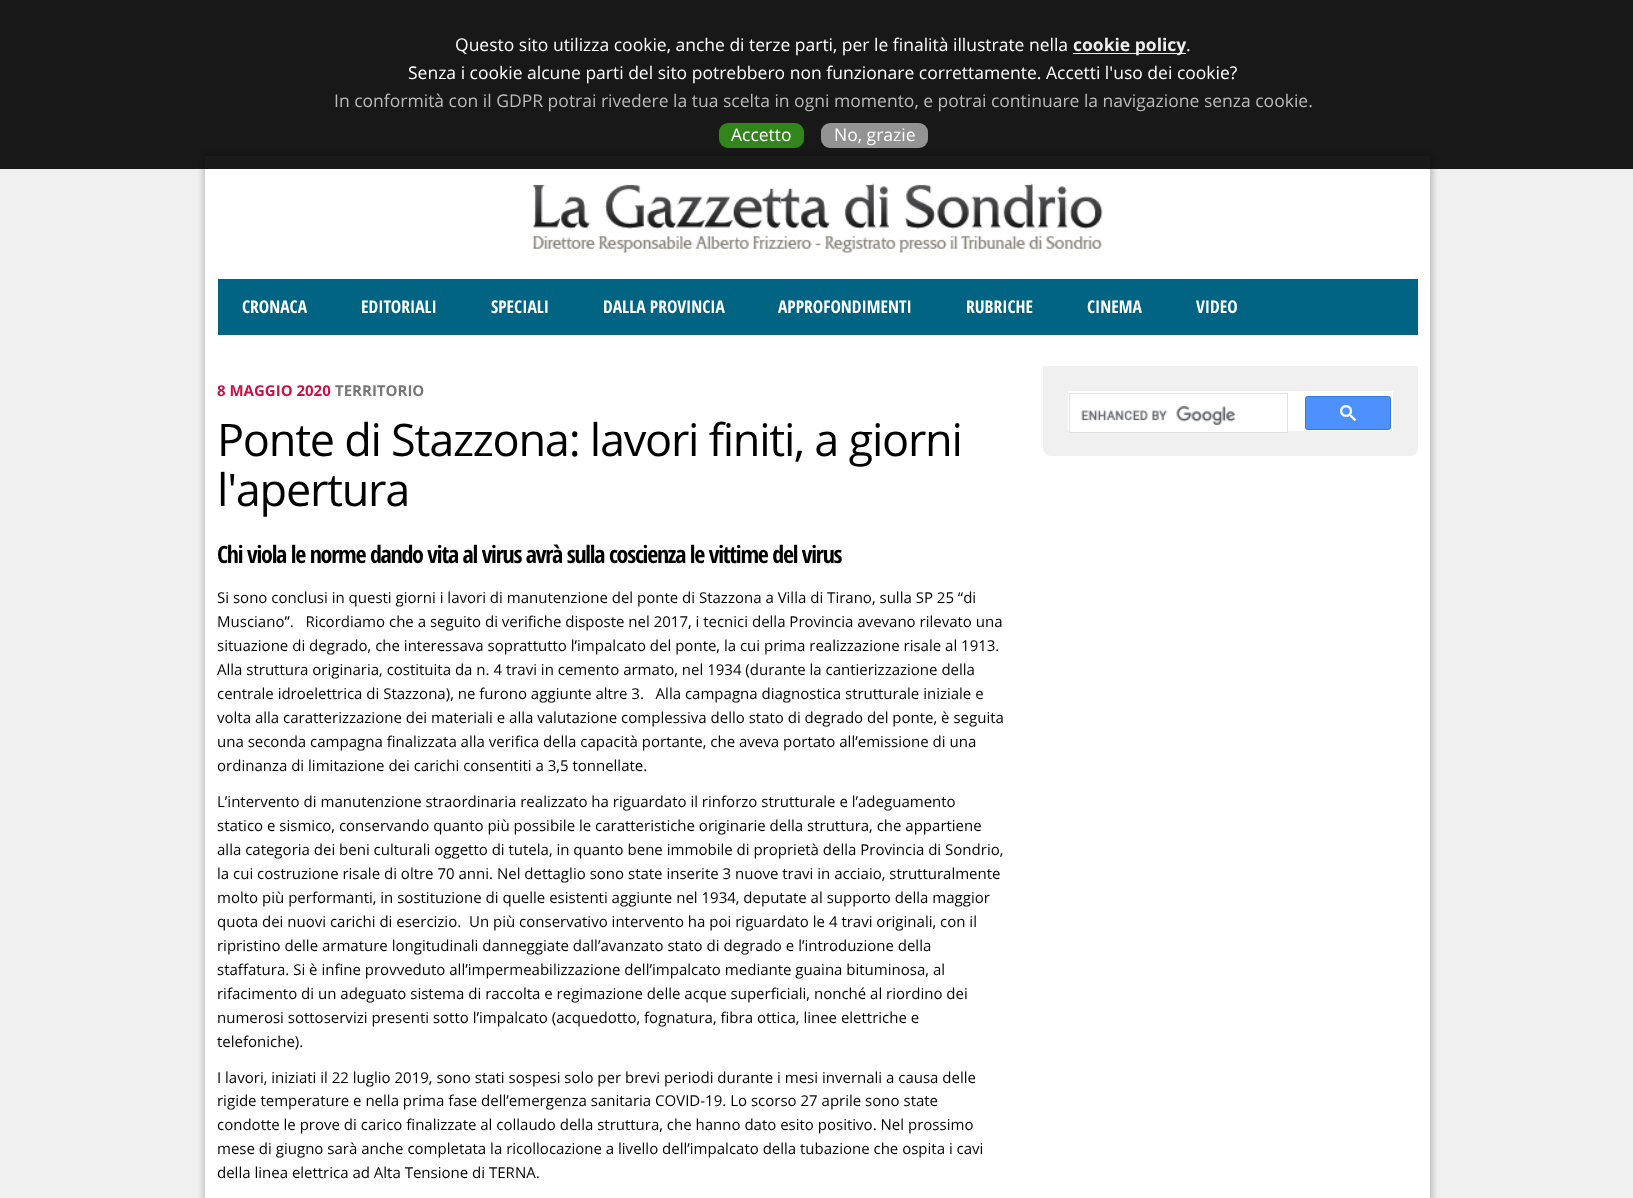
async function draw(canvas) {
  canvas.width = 1633
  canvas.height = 1198
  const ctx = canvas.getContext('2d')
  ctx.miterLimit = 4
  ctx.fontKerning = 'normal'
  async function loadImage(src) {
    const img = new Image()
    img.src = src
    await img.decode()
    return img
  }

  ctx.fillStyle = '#f0f0f0'
  ctx.fillRect(0, 0, 1633, 1198)
  ctx.fillStyle = '#00000033'
  ctx.filter = 'blur(3px)'
  ctx.beginPath()
  ctx.rect(203, 154, 1230, 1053)
  ctx.fill()
  ctx.filter = 'none'
  ctx.fillStyle = '#fff'
  ctx.fillRect(205, 156, 1225, 1042)
  ctx.fillStyle = '#000000e6'
  ctx.fillRect(0, 0, 1633, 169)
  ctx.font = '17.5px Open Sans'
  ctx.fillStyle = '#fff'
  ctx.fillText('Questo sito utilizza cookie, anche di terze parti, per le finalità illustrate nella', 455, 51)
  ctx.fillStyle = '#eee'
  ctx.fillRect(1073, 53, 113, 1)
  ctx.font = 'bold 17.5px Open Sans'
  ctx.fillText('cookie policy', 1073, 51)
  ctx.font = '17.5px Open Sans'
  ctx.fillStyle = '#fff'
  ctx.fillText('.', 1186, 51)
  ctx.fillText('Senza i cookie alcune parti del sito potrebbero non funzionare correttamente. Accetti l\'uso dei cookie?', 408, 79)
  ctx.fillStyle = '#bababa'
  ctx.fillText('In conformità con il GDPR potrai rivedere la tua scelta in ogni momento, e potrai continuare la navigazione senza cookie.', 334, 107)
  ctx.fillStyle = '#32851b'
  ctx.beginPath()
  ctx.roundRect(719, 123, 85, 25, 9)
  ctx.fill()
  ctx.fillStyle = '#fff'
  ctx.fillText('Accetto', 731, 141)
  ctx.fillStyle = '#939393'
  ctx.beginPath()
  ctx.roundRect(821, 123, 107, 25, 9)
  ctx.fill()
  ctx.fillStyle = '#fff'
  ctx.fillText('No, grazie', 834, 141)
  ctx.drawImage(await loadImage('image0.png'), 532, 183, 571, 70)
  ctx.fillStyle = '#016483'
  ctx.fillRect(218, 279, 1200, 56)
  ctx.font = 'bold 17.5px Open Sans Condensed'
  ctx.fillStyle = '#fff'
  ctx.fillText('CRONACA', 242, 313)
  ctx.fillText('EDITORIALI', 361, 313)
  ctx.fillText('SPECIALI', 491, 313)
  ctx.fillText('DALLA PROVINCIA', 603, 313)
  ctx.fillText('APPROFONDIMENTI', 778, 313)
  ctx.fillText('RUBRICHE', 966, 313)
  ctx.fillText('CINEMA', 1087, 313)
  ctx.fillText('VIDEO', 1196, 313)
  ctx.font = 'bold 15px Open Sans'
  ctx.fillStyle = '#c14'
  ctx.fillText('8 MAGGIO 2020', 217, 396)
  ctx.fillStyle = '#777'
  ctx.fillText('TERRITORIO', 335, 396)
  ctx.letterSpacing = '-1.25px'
  ctx.font = '45px Open Sans'
  ctx.fillStyle = '#000'
  ctx.fillText('Ponte di Stazzona: lavori finiti, a giorni', 217, 456)
  ctx.fillText('l\'apertura', 217, 506)
  ctx.font = 'bold 24px Open Sans Condensed'
  ctx.fillText('Chi viola le norme dando vita al virus avrà sulla coscienza le vittime del virus', 217, 563)
  ctx.letterSpacing = '0px'
  ctx.font = '15px Open Sans'
  ctx.fillText('Si sono conclusi in questi giorni i lavori di manutenzione del ponte di Stazzona a Villa di Tirano, sulla SP 25 “di', 217, 603)
  ctx.fillText('Musciano”.   Ricordiamo che a seguito di verifiche disposte nel 2017, i tecnici della Provincia avevano rilevato una', 217, 627)
  ctx.fillText('situazione di degrado, che interessava soprattutto l’impalcato del ponte, la cui prima realizzazione risale al 1913.', 217, 651)
  ctx.fillText('Alla struttura originaria, costituita da n. 4 travi in cemento armato, nel 1934 (durante la cantierizzazione della', 217, 675)
  ctx.fillText('centrale idroelettrica di Stazzona), ne furono aggiunte altre 3.   Alla campagna diagnostica strutturale iniziale e', 217, 699)
  ctx.fillText('volta alla caratterizzazione dei materiali e alla valutazione complessiva dello stato di degrado del ponte, è seguita', 217, 723)
  ctx.fillText('una seconda campagna finalizzata alla verifica della capacità portante, che aveva portato all’emissione di una', 217, 747)
  ctx.fillText('ordinanza di limitazione dei carichi consentiti a 3,5 tonnellate.', 217, 771)
  ctx.fillText('L’intervento di manutenzione straordinaria realizzato ha riguardato il rinforzo strutturale e l’adeguamento', 217, 807)
  ctx.fillText('statico e sismico, conservando quanto più possibile le caratteristiche originarie della struttura, che appartiene', 217, 831)
  ctx.fillText('alla categoria dei beni culturali oggetto di tutela, in quanto bene immobile di proprietà della Provincia di Sondrio,', 217, 855)
  ctx.fillText('la cui costruzione risale di oltre 70 anni. Nel dettaglio sono state inserite 3 nuove travi in acciaio, strutturalmente', 217, 879)
  ctx.fillText('molto più performanti, in sostituzione di quelle esistenti aggiunte nel 1934, deputate al supporto della maggior', 217, 903)
  ctx.fillText('quota dei nuovi carichi di esercizio.  Un più conservativo intervento ha poi riguardato le 4 travi originali, con il', 217, 927)
  ctx.fillText('ripristino delle armature longitudinali danneggiate dall’avanzato stato di degrado e l’introduzione della', 217, 951)
  ctx.fillText('staffatura. Si è infine provveduto all’impermeabilizzazione dell’impalcato mediante guaina bituminosa, al', 217, 975)
  ctx.fillText('rifacimento di un adeguato sistema di raccolta e regimazione delle acque superficiali, nonché al riordino dei', 217, 999)
  ctx.fillText('numerosi sottoservizi presenti sotto l’impalcato (acquedotto, fognatura, fibra ottica, linee elettriche e', 217, 1023)
  ctx.fillText('telefoniche).', 217, 1047)
  ctx.fillText('I lavori, iniziati il 22 luglio 2019, sono stati sospesi solo per brevi periodi durante i mesi invernali a causa delle', 217, 1083)
  ctx.fillText('rigide temperature e nella prima fase dell’emergenza sanitaria COVID-19. Lo scorso 27 aprile sono state', 217, 1106)
  ctx.fillText('condotte le prove di carico finalizzate al collaudo della struttura, che hanno dato esito positivo. Nel prossimo', 217, 1130)
  ctx.fillText('mese di giugno sarà anche completata la ricollocazione a livello dell’impalcato della tubazione che ospita i cavi', 217, 1154)
  ctx.fillText('della linea elettrica ad Alta Tensione di TERNA.', 217, 1178)
  ctx.fillStyle = '#f0f0f0'
  ctx.beginPath()
  ctx.roundRect(1043, 366, 375, 90, [0, 0, 8, 8])
  ctx.fill()
  ctx.fillStyle = '#fff'
  ctx.fillRect(1068, 391, 325, 40)
  ctx.fillRect(1070, 431, 217, 1)
  ctx.strokeStyle = '#dfe1e5'
  ctx.strokeRect(1069.5, 393.5, 218, 39)
  ctx.drawImage(await loadImage('image1.png'), 1081, 406, 154, 19)
  ctx.fillStyle = '#4d90fe'
  ctx.beginPath()
  ctx.roundRect(1305.5, 396.5, 85, 33, 2)
  ctx.fill()
  ctx.strokeStyle = '#3079ed'
  ctx.stroke()
  ctx.drawImage(await loadImage('image2.png'), 1340, 405, 16, 16)
}

draw(document.querySelector('canvas'))
